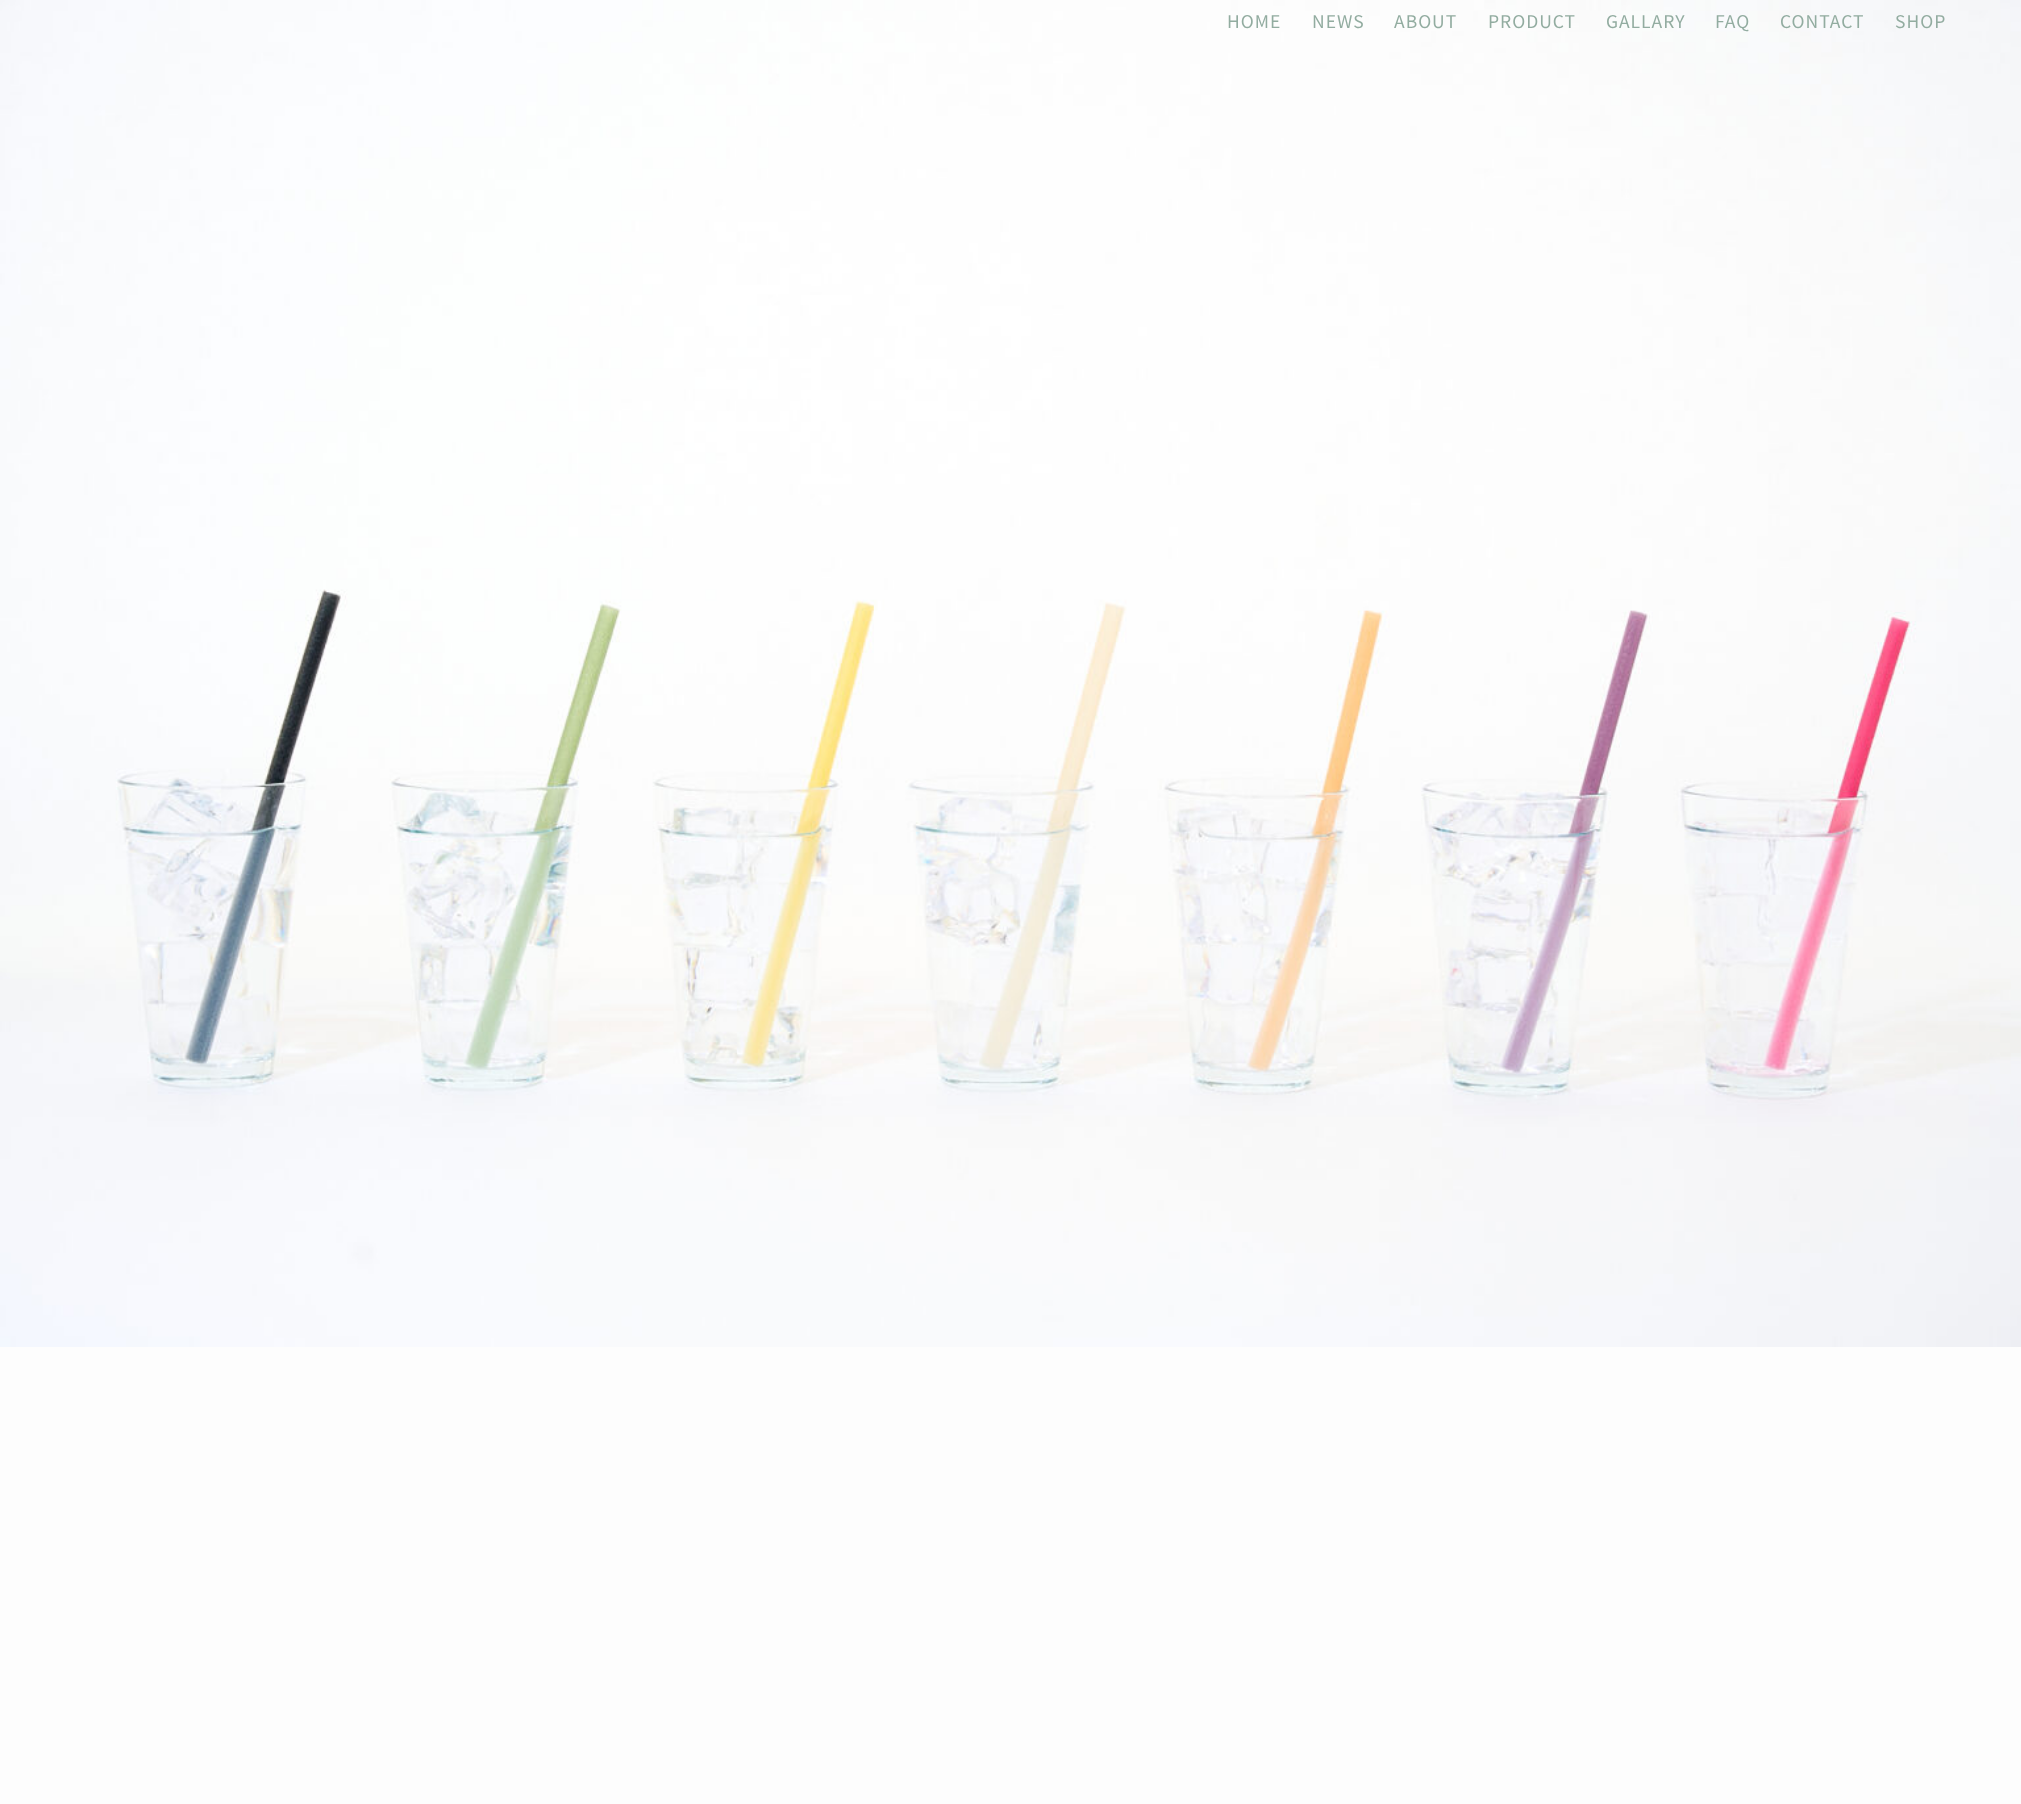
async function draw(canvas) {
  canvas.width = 2021
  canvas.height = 1804
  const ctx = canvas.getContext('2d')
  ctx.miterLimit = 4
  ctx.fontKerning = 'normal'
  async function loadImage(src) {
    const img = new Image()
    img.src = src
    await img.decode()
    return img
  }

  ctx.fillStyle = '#fdfdfd'
  ctx.fillRect(0, 0, 2021, 1804)
  ctx.drawImage(await loadImage('image0.png'), 0, 0, 2021, 1347)
  ctx.letterSpacing = '1px'
  ctx.font = '17.5px Noto Sans JP'
  ctx.fillStyle = '#92aca0'
  ctx.fillText('HOME', 1227, 28)
  ctx.fillText('NEWS', 1312, 28)
  ctx.fillText('ABOUT', 1394, 28)
  ctx.fillText('PRODUCT', 1488, 28)
  ctx.fillText('GALLARY', 1606, 28)
  ctx.fillText('FAQ', 1715, 28)
  ctx.fillText('CONTACT', 1780, 28)
  ctx.fillText('SHOP', 1895, 28)
}

draw(document.querySelector('canvas'))
